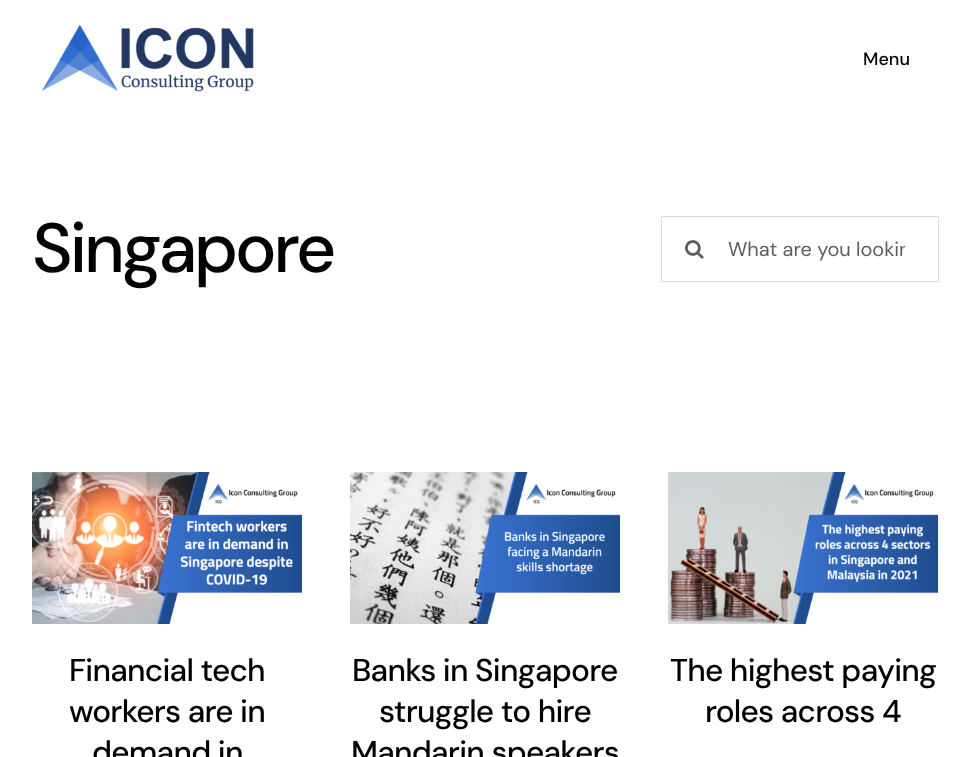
async function draw(canvas) {
  canvas.width = 971
  canvas.height = 757
  const ctx = canvas.getContext('2d')
  ctx.miterLimit = 4
  ctx.fontKerning = 'normal'
  async function loadImage(src) {
    const img = new Image()
    img.src = src
    await img.decode()
    return img
  }

  ctx.fillStyle = '#fff'
  ctx.fillRect(0, 0, 971, 757)
  ctx.drawImage(await loadImage('image0.png'), 42, 24, 212, 68)
  ctx.font = '500 18px DM Sans'
  ctx.fillStyle = '#000'
  ctx.fillText('Menu', 863, 65)
  ctx.letterSpacing = '-3.1px'
  ctx.font = '500 69.5px DM Sans'
  ctx.fillText('Singapore', 32, 272)
  ctx.strokeStyle = '#dbdbdb'
  ctx.strokeRect(661.5, 216.5, 277, 65)
  ctx.drawImage(await loadImage('image1.png'), 685, 240, 19, 19)
  ctx.save()
  ctx.beginPath()
  ctx.rect(728, 236, 177, 26)
  ctx.clip()
  ctx.letterSpacing = '0px'
  ctx.font = '20px DM Sans'
  ctx.fillStyle = '#5e5e5e'
  ctx.fillText('What are you lookin', 728, 256)
  ctx.restore()
  ctx.drawImage(await loadImage('image2.png'), 32, 472, 270, 152)
  ctx.letterSpacing = '-0.75px'
  ctx.font = '500 31.5px DM Sans'
  ctx.fillText('Financial tech', 69, 681)
  ctx.fillText('workers are in', 69, 722)
  ctx.fillText('demand in', 92, 763)
  ctx.drawImage(await loadImage('image3.png'), 350, 472, 270, 152)
  ctx.fillText('Banks in Singapore', 352, 681)
  ctx.fillText('struggle to hire', 379, 722)
  ctx.fillText('Mandarin speakers', 351, 763)
  ctx.drawImage(await loadImage('image4.png'), 668, 472, 270, 152)
  ctx.fillText('The highest paying', 670, 681)
  ctx.fillText('roles across 4', 705, 722)
}

draw(document.querySelector('canvas'))
